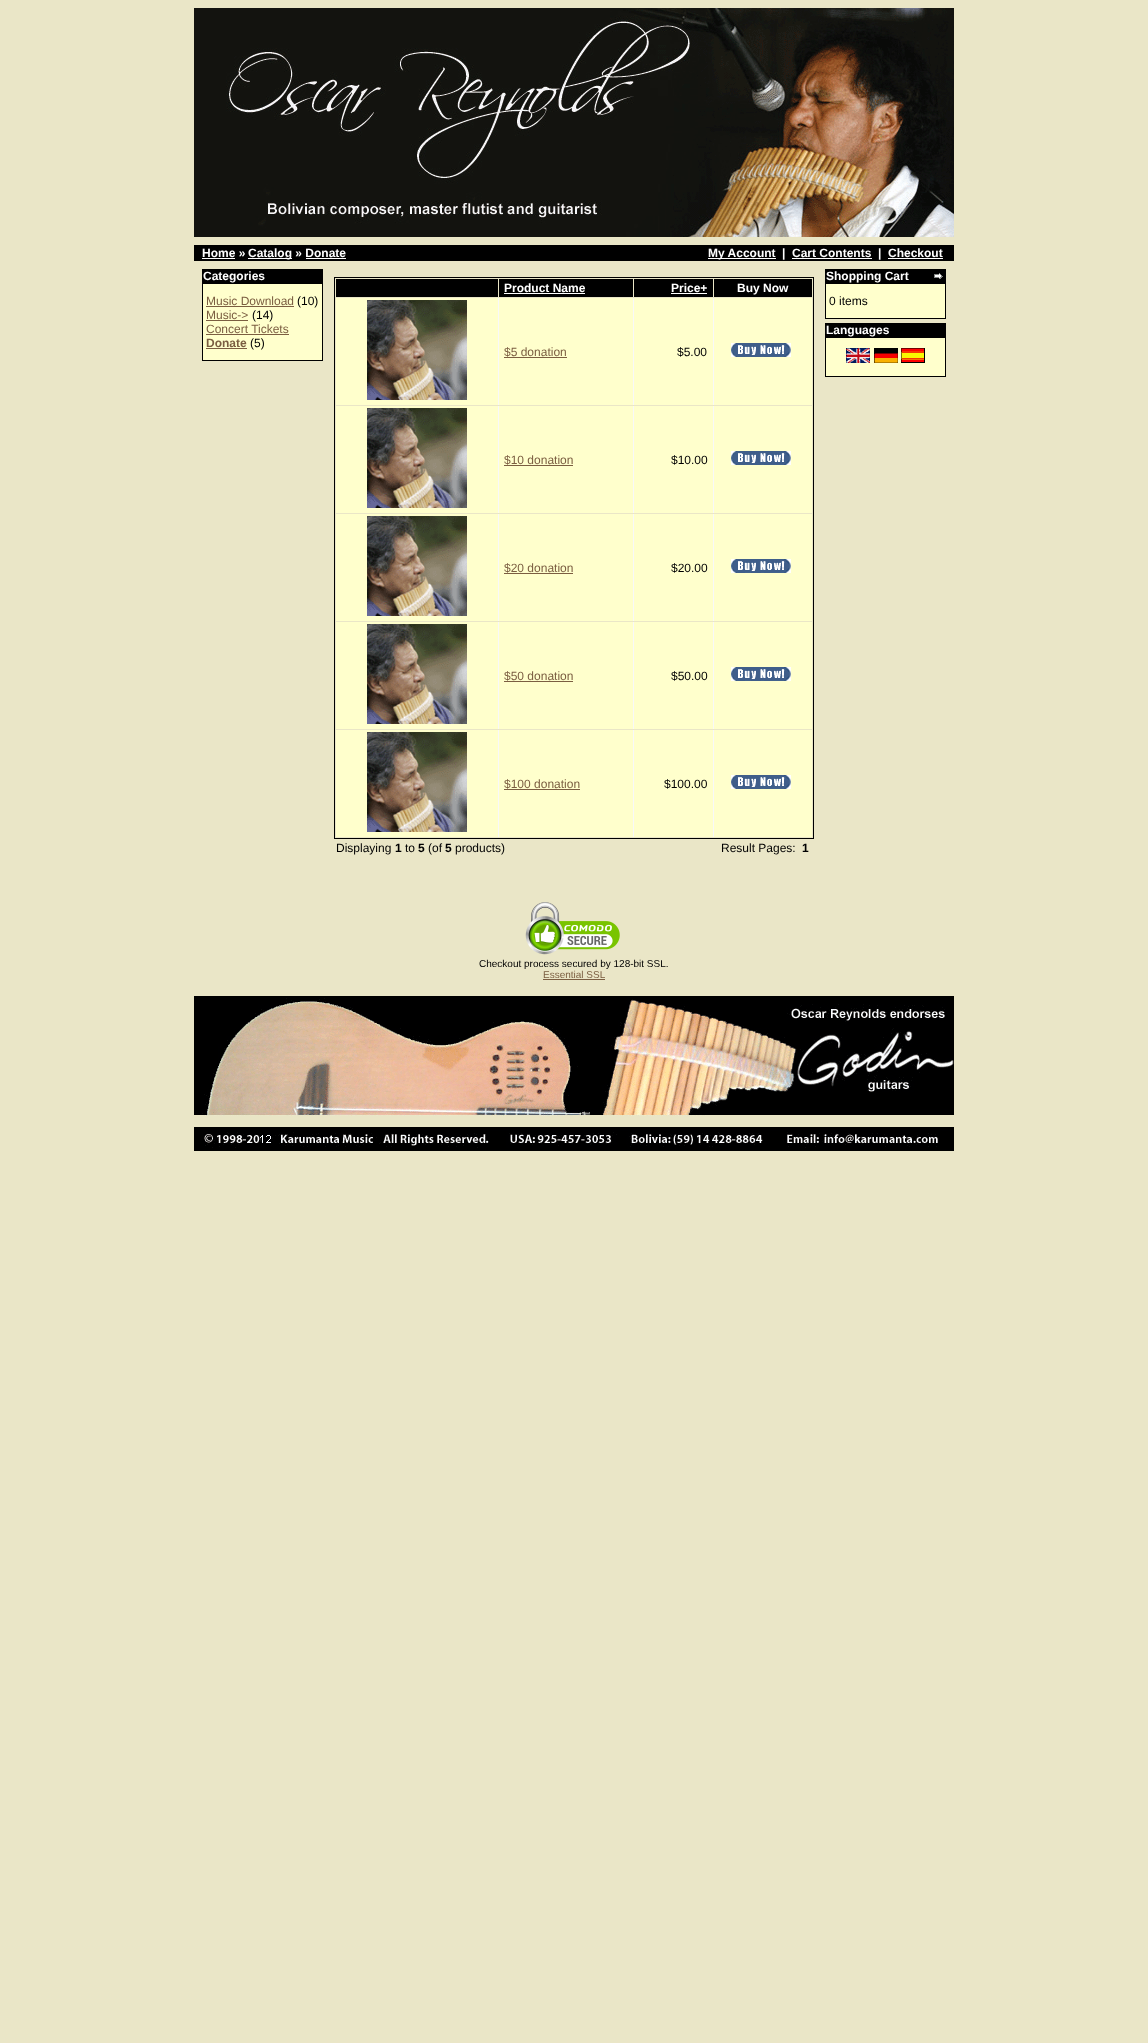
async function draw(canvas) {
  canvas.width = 1148
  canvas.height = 2043
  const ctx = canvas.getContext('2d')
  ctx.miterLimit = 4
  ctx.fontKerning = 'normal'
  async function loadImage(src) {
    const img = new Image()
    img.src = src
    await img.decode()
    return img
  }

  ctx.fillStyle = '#eae6c7'
  ctx.fillRect(0, 0, 1148, 2043)
  ctx.drawImage(await loadImage('image0.png'), 194, 8, 760, 229)
  ctx.fillStyle = '#000'
  ctx.fillRect(194, 245, 760, 16)
  ctx.font = 'bold 12px Liberation Sans'
  ctx.fillStyle = '#fff'
  ctx.fillText('Home »', 202, 257)
  ctx.fillRect(202, 258, 33, 1)
  ctx.fillRect(248, 258, 44, 1)
  ctx.fillText('Catalog » Donate', 248, 257)
  ctx.fillRect(306, 258, 40, 1)
  ctx.fillRect(708, 258, 68, 1)
  ctx.fillText('My Account', 708, 257)
  ctx.fillText('|', 782, 257)
  ctx.fillText('Cart Contents', 792, 257)
  ctx.fillRect(792, 258, 80, 1)
  ctx.fillText('|', 878, 257)
  ctx.fillText('Checkout', 888, 257)
  ctx.fillRect(888, 258, 55, 1)
  ctx.fillStyle = '#000'
  ctx.fillRect(202, 269, 121, 92)
  ctx.fillStyle = '#fff'
  ctx.fillText('Categories', 203, 280)
  ctx.fillStyle = '#ffc'
  ctx.fillRect(203, 284, 119, 76)
  ctx.font = '12px Liberation Sans'
  ctx.fillStyle = '#7b5e41'
  ctx.fillText('Music Download', 206, 305)
  ctx.fillRect(206, 306, 88, 1)
  ctx.fillStyle = '#000'
  ctx.fillText('(10)', 297, 305)
  ctx.fillStyle = '#7b5e41'
  ctx.fillText('Music->', 206, 319)
  ctx.fillRect(206, 320, 42, 1)
  ctx.fillStyle = '#000'
  ctx.fillText('(14)', 252, 319)
  ctx.fillStyle = '#7b5e41'
  ctx.fillText('Concert Tickets', 206, 333)
  ctx.fillRect(206, 334, 83, 1)
  ctx.font = 'bold 12px Liberation Sans'
  ctx.fillText('Donate', 206, 347)
  ctx.fillRect(206, 348, 41, 1)
  ctx.font = '12px Liberation Sans'
  ctx.fillStyle = '#000'
  ctx.fillText('(5)', 250, 347)
  ctx.strokeStyle = '#000'
  ctx.strokeRect(334.5, 277.5, 479, 561)
  ctx.fillRect(336, 279, 162, 18)
  ctx.fillRect(499, 279, 134, 18)
  ctx.font = 'bold 12px Liberation Sans'
  ctx.fillStyle = '#fff'
  ctx.fillText('Product Name', 504, 292)
  ctx.fillRect(504, 293, 81, 1)
  ctx.fillStyle = '#000'
  ctx.fillRect(634, 279, 79, 18)
  ctx.fillStyle = '#fff'
  ctx.fillText('Price+', 671, 292)
  ctx.fillRect(671, 293, 36, 1)
  ctx.fillStyle = '#000'
  ctx.fillRect(714, 279, 98, 18)
  ctx.fillStyle = '#fff'
  ctx.fillText('Buy Now', 737, 292)
  ctx.fillStyle = '#f8f8f9'
  ctx.fillRect(498, 298, 216, 107)
  ctx.fillStyle = '#ffc'
  ctx.fillRect(336, 298, 162, 107)
  ctx.drawImage(await loadImage('image1.png'), 367, 300, 100, 100)
  ctx.fillRect(499, 298, 134, 107)
  ctx.font = '12px Liberation Sans'
  ctx.fillStyle = '#7b5e41'
  ctx.fillText('$5 donation', 504, 356)
  ctx.fillRect(504, 357, 63, 1)
  ctx.fillStyle = '#ffc'
  ctx.fillRect(634, 298, 79, 107)
  ctx.fillStyle = '#000'
  ctx.fillText('$5.00', 677, 356)
  ctx.fillStyle = '#ffc'
  ctx.fillRect(714, 298, 98, 107)
  ctx.drawImage(await loadImage('image2.png'), 731, 343, 60, 14)
  ctx.fillStyle = '#f8f8f9'
  ctx.fillRect(498, 406, 216, 107)
  ctx.fillStyle = '#ffc'
  ctx.fillRect(336, 406, 162, 107)
  ctx.drawImage(await loadImage('image1.png'), 367, 408, 100, 100)
  ctx.fillRect(499, 406, 134, 107)
  ctx.fillStyle = '#7b5e41'
  ctx.fillText('$10 donation', 504, 464)
  ctx.fillRect(504, 465, 69, 1)
  ctx.fillStyle = '#ffc'
  ctx.fillRect(634, 406, 79, 107)
  ctx.fillStyle = '#000'
  ctx.fillText('$10.00', 671, 464)
  ctx.fillStyle = '#ffc'
  ctx.fillRect(714, 406, 98, 107)
  ctx.drawImage(await loadImage('image2.png'), 731, 451, 60, 14)
  ctx.fillStyle = '#f8f8f9'
  ctx.fillRect(498, 514, 216, 107)
  ctx.fillStyle = '#ffc'
  ctx.fillRect(336, 514, 162, 107)
  ctx.drawImage(await loadImage('image1.png'), 367, 516, 100, 100)
  ctx.fillRect(499, 514, 134, 107)
  ctx.fillStyle = '#7b5e41'
  ctx.fillText('$20 donation', 504, 572)
  ctx.fillRect(504, 573, 69, 1)
  ctx.fillStyle = '#ffc'
  ctx.fillRect(634, 514, 79, 107)
  ctx.fillStyle = '#000'
  ctx.fillText('$20.00', 671, 572)
  ctx.fillStyle = '#ffc'
  ctx.fillRect(714, 514, 98, 107)
  ctx.drawImage(await loadImage('image2.png'), 731, 559, 60, 14)
  ctx.fillStyle = '#f8f8f9'
  ctx.fillRect(498, 622, 216, 107)
  ctx.fillStyle = '#ffc'
  ctx.fillRect(336, 622, 162, 107)
  ctx.drawImage(await loadImage('image1.png'), 367, 624, 100, 100)
  ctx.fillRect(499, 622, 134, 107)
  ctx.fillStyle = '#7b5e41'
  ctx.fillText('$50 donation', 504, 680)
  ctx.fillRect(504, 681, 69, 1)
  ctx.fillStyle = '#ffc'
  ctx.fillRect(634, 622, 79, 107)
  ctx.fillStyle = '#000'
  ctx.fillText('$50.00', 671, 680)
  ctx.fillStyle = '#ffc'
  ctx.fillRect(714, 622, 98, 107)
  ctx.drawImage(await loadImage('image2.png'), 731, 667, 60, 14)
  ctx.fillStyle = '#f8f8f9'
  ctx.fillRect(498, 730, 216, 107)
  ctx.fillStyle = '#ffc'
  ctx.fillRect(336, 730, 162, 107)
  ctx.drawImage(await loadImage('image1.png'), 367, 732, 100, 100)
  ctx.fillRect(499, 730, 134, 107)
  ctx.fillStyle = '#7b5e41'
  ctx.fillText('$100 donation', 504, 788)
  ctx.fillRect(504, 789, 76, 1)
  ctx.fillStyle = '#ffc'
  ctx.fillRect(634, 730, 79, 107)
  ctx.fillStyle = '#000'
  ctx.fillText('$100.00', 664, 788)
  ctx.fillStyle = '#ffc'
  ctx.fillRect(714, 730, 98, 107)
  ctx.drawImage(await loadImage('image2.png'), 731, 775, 60, 14)
  ctx.fillStyle = '#000'
  ctx.fillText('Displaying', 336, 852)
  ctx.font = 'bold 12px Liberation Sans'
  ctx.fillText('1', 395, 852)
  ctx.font = '12px Liberation Sans'
  ctx.fillText('to', 405, 852)
  ctx.font = 'bold 12px Liberation Sans'
  ctx.fillText('5', 418, 852)
  ctx.font = '12px Liberation Sans'
  ctx.fillText('(of', 428, 852)
  ctx.font = 'bold 12px Liberation Sans'
  ctx.fillText('5', 445, 852)
  ctx.font = '12px Liberation Sans'
  ctx.fillText('products)', 455, 852)
  ctx.fillText('Result Pages:', 721, 852)
  ctx.font = 'bold 12px Liberation Sans'
  ctx.fillText('1', 802, 852)
  ctx.fillRect(825, 269, 121, 50)
  ctx.fillStyle = '#fff'
  ctx.fillText('Shopping Cart', 826, 280)
  ctx.drawImage(await loadImage('image3.png'), 934, 273, 9, 6)
  ctx.fillStyle = '#ffc'
  ctx.fillRect(826, 284, 119, 34)
  ctx.font = '12px Liberation Sans'
  ctx.fillStyle = '#000'
  ctx.fillText('0 items', 829, 305)
  ctx.fillRect(825, 323, 121, 54)
  ctx.font = 'bold 12px Liberation Sans'
  ctx.fillStyle = '#fff'
  ctx.fillText('Languages', 826, 334)
  ctx.fillStyle = '#ffc'
  ctx.fillRect(826, 338, 119, 38)
  ctx.drawImage(await loadImage('image4.png'), 846, 348, 24, 15)
  ctx.drawImage(await loadImage('image5.png'), 874, 348, 24, 15)
  ctx.drawImage(await loadImage('image6.png'), 901, 348, 24, 15)
  ctx.drawImage(await loadImage('image7.png'), 525, 902, 95, 53)
  ctx.font = '10px Liberation Sans'
  ctx.fillStyle = '#000'
  ctx.fillText('Checkout process secured by 128-bit SSL.', 479, 967)
  ctx.fillStyle = '#7b5e41'
  ctx.fillText('Essential SSL', 543, 978)
  ctx.fillRect(543, 979, 62, 1)
  ctx.drawImage(await loadImage('image8.png'), 194, 996, 760, 155)
}

draw(document.querySelector('canvas'))
